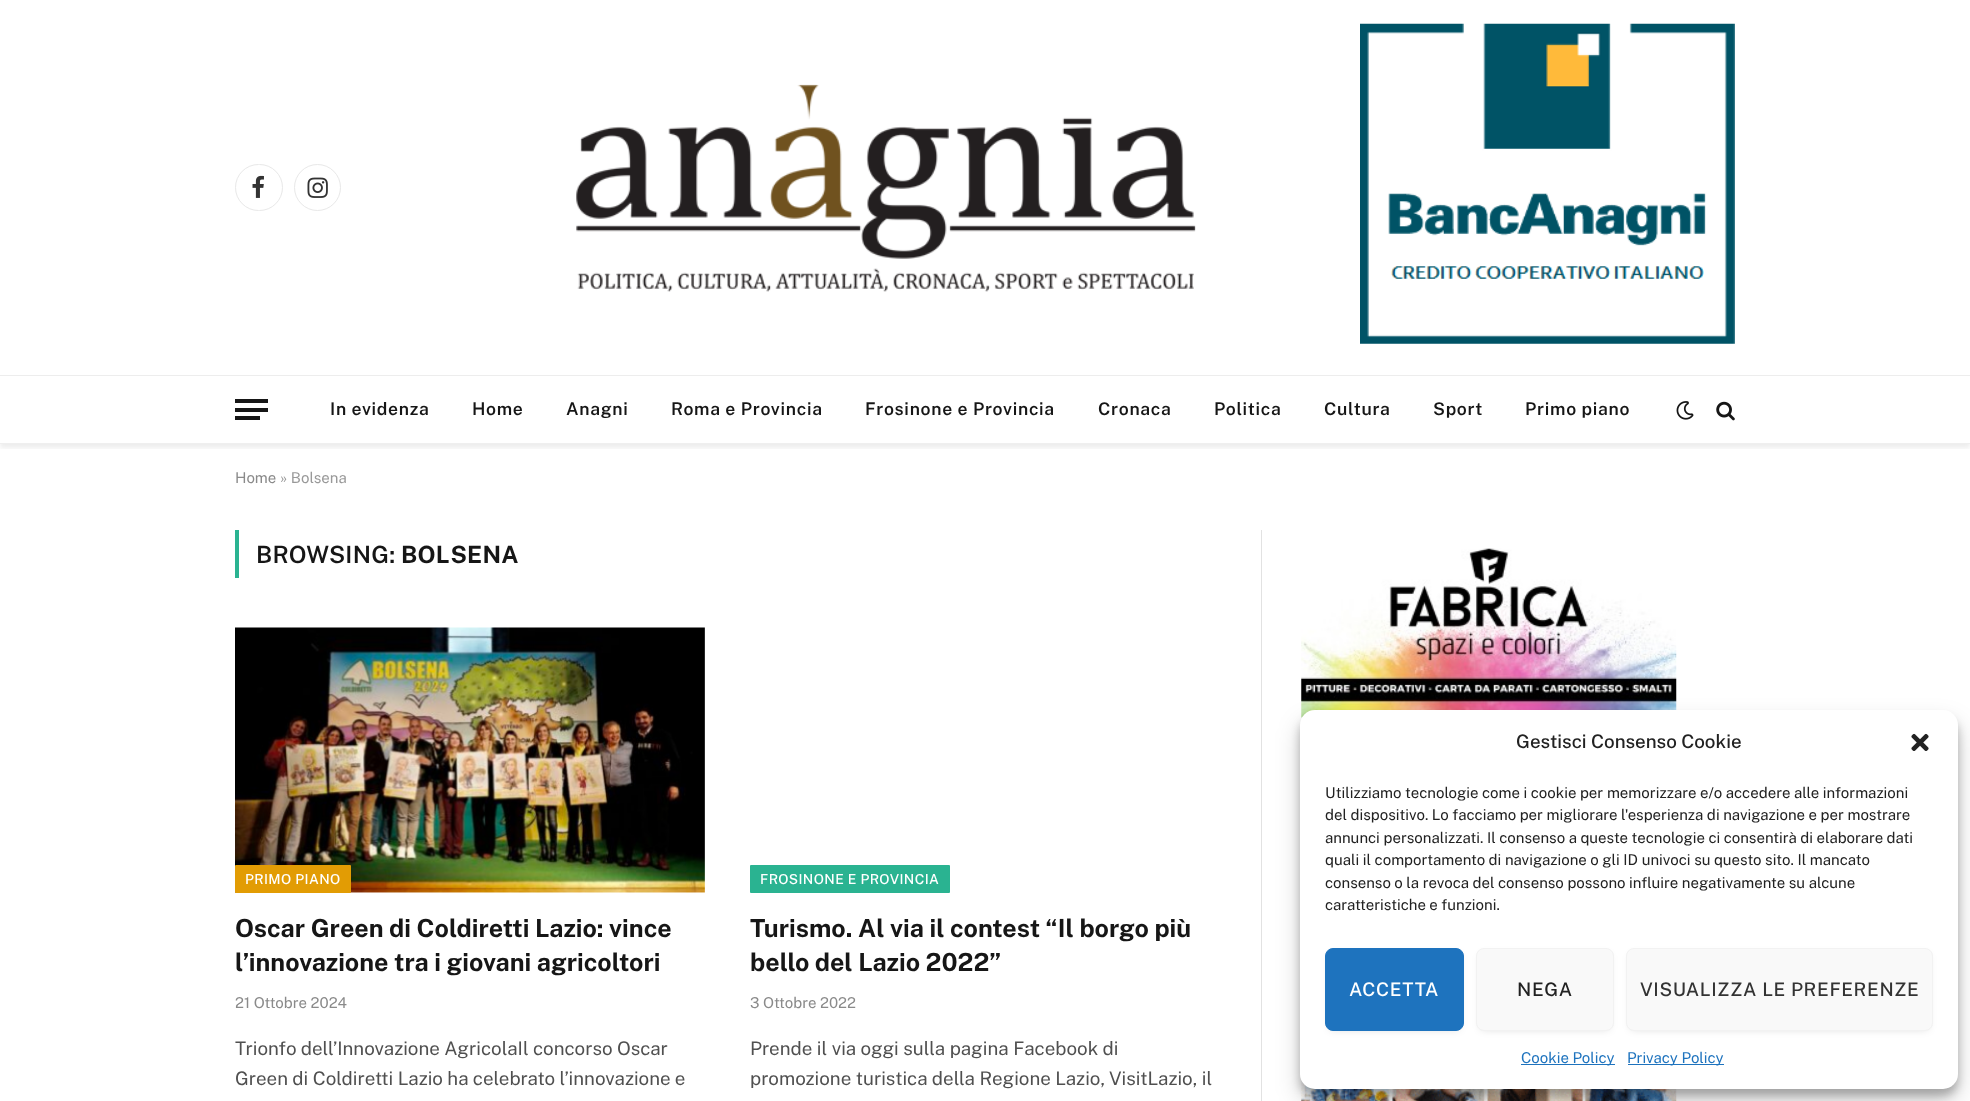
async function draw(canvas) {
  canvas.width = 1970
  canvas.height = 1101
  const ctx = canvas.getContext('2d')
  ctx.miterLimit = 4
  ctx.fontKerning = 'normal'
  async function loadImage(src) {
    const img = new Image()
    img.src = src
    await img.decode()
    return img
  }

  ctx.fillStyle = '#fff'
  ctx.fillRect(0, 0, 1970, 1101)
  ctx.save()
  ctx.beginPath()
  ctx.rect(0, 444, 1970, 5)
  ctx.clip()
  ctx.fillStyle = '#00000012'
  ctx.filter = 'blur(2.5px)'
  ctx.beginPath()
  ctx.rect(0, 4, 1970, 444)
  ctx.fill()
  ctx.filter = 'none'
  ctx.restore()
  ctx.beginPath()
  ctx.roundRect(235.5, 164.5, 47, 46, 23)
  ctx.strokeStyle = '#e8e8e8'
  ctx.stroke()
  ctx.drawImage(await loadImage('image0.png'), 252, 175, 12, 23)
  ctx.beginPath()
  ctx.arc(317.5, 187.5, 23, 0, 2 * Math.PI)
  ctx.stroke()
  ctx.drawImage(await loadImage('image1.png'), 307, 177, 21, 21)
  ctx.drawImage(await loadImage('image2.png'), 576, 84, 620, 208)
  ctx.drawImage(await loadImage('image3.png'), 1360, 23, 375, 321)
  ctx.fillStyle = '#ededed'
  ctx.fillRect(0, 375, 1970, 1)
  ctx.fillStyle = '#efefef'
  ctx.fillRect(0, 443, 1970, 1)
  ctx.fillStyle = '#161616'
  ctx.fillRect(235, 416, 25, 4)
  ctx.fillRect(235, 399, 33, 4)
  ctx.fillRect(235, 408, 33, 4)
  ctx.letterSpacing = '0.7px'
  ctx.font = '600 17.5px Public Sans'
  ctx.fillText('In evidenza', 330, 415)
  ctx.fillText('Home', 472, 415)
  ctx.fillText('Anagni', 566, 415)
  ctx.fillText('Roma e Provincia', 671, 415)
  ctx.fillText('Frosinone e Provincia', 865, 415)
  ctx.fillText('Cronaca', 1098, 415)
  ctx.fillText('Politica', 1214, 415)
  ctx.fillText('Cultura', 1324, 415)
  ctx.fillText('Sport', 1433, 415)
  ctx.fillText('Primo piano', 1525, 415)
  ctx.drawImage(await loadImage('image4.png'), 1676, 401, 18, 19)
  ctx.drawImage(await loadImage('image5.png'), 1716, 401, 19, 20)
  ctx.letterSpacing = '0px'
  ctx.font = '15px Public Sans'
  ctx.fillStyle = '#8a8a8a'
  ctx.fillText('Home', 235, 483)
  ctx.fillStyle = '#999'
  ctx.fillText('» Bolsena', 280, 483)
  ctx.fillStyle = '#2ab391'
  ctx.fillRect(235, 530, 4, 48)
  ctx.letterSpacing = '0.25px'
  ctx.font = '600 23.75px Public Sans'
  ctx.fillStyle = '#161616'
  ctx.fillText('BROWSING:', 256, 563)
  ctx.font = 'bold 23.75px Public Sans'
  ctx.fillText('BOLSENA', 401, 563)
  ctx.drawImage(await loadImage('image6.png'), 235, 627, 470, 266)
  ctx.fillStyle = '#e29c04'
  ctx.beginPath()
  ctx.roundRect(235, 865, 116, 28, 1)
  ctx.fill()
  ctx.letterSpacing = '0.4px'
  ctx.font = '500 13.75px Public Sans'
  ctx.fillStyle = '#fff'
  ctx.fillText('PRIMO PIANO', 245, 884)
  ctx.letterSpacing = '0px'
  ctx.font = 'bold 25px Public Sans'
  ctx.fillStyle = '#161616'
  ctx.fillText('Oscar Green di Coldiretti Lazio: vince', 235, 937)
  ctx.fillText('l’innovazione tra i giovani agricoltori', 235, 971)
  ctx.font = '15px Public Sans'
  ctx.fillStyle = '#8a8a8a'
  ctx.fillText('21 Ottobre 2024', 235, 1008)
  ctx.font = '18.75px Public Sans'
  ctx.fillStyle = '#505050'
  ctx.fillText('Trionfo dell’Innovazione AgricolaIl concorso Oscar', 235, 1055)
  ctx.fillText('Green di Coldiretti Lazio ha celebrato l’innovazione e', 235, 1085)
  ctx.fillStyle = '#2ab391'
  ctx.beginPath()
  ctx.roundRect(750, 865, 200, 28, 1)
  ctx.fill()
  ctx.letterSpacing = '0.4px'
  ctx.font = '500 13.75px Public Sans'
  ctx.fillStyle = '#fff'
  ctx.fillText('FROSINONE E PROVINCIA', 760, 884)
  ctx.letterSpacing = '0px'
  ctx.font = 'bold 25px Public Sans'
  ctx.fillStyle = '#161616'
  ctx.fillText('Turismo. Al via il contest “Il borgo più', 750, 937)
  ctx.fillText('bello del Lazio 2022”', 750, 971)
  ctx.font = '15px Public Sans'
  ctx.fillStyle = '#8a8a8a'
  ctx.fillText('3 Ottobre 2022', 750, 1008)
  ctx.font = '18.75px Public Sans'
  ctx.fillStyle = '#505050'
  ctx.fillText('Prende il via oggi sulla pagina Facebook di', 750, 1055)
  ctx.fillText('promozione turistica della Regione Lazio, VisitLazio, il', 750, 1085)
  ctx.fillStyle = '#e2e2e2'
  ctx.fillRect(1261, 530, 1, 571)
  ctx.drawImage(await loadImage('image7.png'), 1301, 548, 376, 170)
  ctx.drawImage(await loadImage('image8.png'), 1301, 1079, 376, 22)
  ctx.fillStyle = '#0000003b'
  ctx.filter = 'blur(4px)'
  ctx.beginPath()
  ctx.roundRect(1300, 718, 658, 378, 15)
  ctx.fill()
  ctx.filter = 'none'
  ctx.fillStyle = '#00000030'
  ctx.filter = 'blur(12.5px)'
  ctx.beginPath()
  ctx.roundRect(1300, 723, 658, 378, 15)
  ctx.fill()
  ctx.filter = 'none'
  ctx.fillStyle = '#fff'
  ctx.beginPath()
  ctx.roundRect(1300, 710, 658, 379, 15)
  ctx.fill()
  ctx.font = '500 18.75px Public Sans'
  ctx.fillStyle = '#222'
  ctx.fillText('Gestisci Consenso Cookie', 1516, 748)
  ctx.drawImage(await loadImage('image9.png'), 1911, 733, 18, 18)
  ctx.font = '15px Public Sans'
  ctx.fillText('Utilizziamo tecnologie come i cookie per memorizzare e/o accedere alle informazioni', 1325, 798)
  ctx.fillText('del dispositivo. Lo facciamo per migliorare l\'esperienza di navigazione e per mostrare', 1325, 820)
  ctx.fillText('annunci personalizzati. Il consenso a queste tecnologie ci consentirà di elaborare dati', 1325, 843)
  ctx.fillText('quali il comportamento di navigazione o gli ID univoci su questo sito. Il mancato', 1325, 865)
  ctx.fillText('consenso o la revoca del consenso possono influire negativamente su alcune', 1325, 888)
  ctx.fillText('caratteristiche e funzioni.', 1325, 910)
  ctx.fillStyle = '#00000029'
  ctx.filter = 'blur(4.5px)'
  ctx.beginPath()
  ctx.roundRect(1330, 955, 129, 74, 2.5)
  ctx.fill()
  ctx.filter = 'none'
  ctx.fillStyle = '#1e73be'
  ctx.beginPath()
  ctx.roundRect(1325.5, 948.5, 138, 82, 7.5)
  ctx.fill()
  ctx.strokeStyle = '#1e73be'
  ctx.stroke()
  ctx.letterSpacing = '0.6px'
  ctx.font = '500 18.75px Public Sans'
  ctx.fillStyle = '#fff'
  ctx.fillText('ACCETTA', 1349, 996)
  ctx.fillStyle = '#00000029'
  ctx.filter = 'blur(4.5px)'
  ctx.beginPath()
  ctx.roundRect(1481, 955, 128, 74, 2.5)
  ctx.fill()
  ctx.filter = 'none'
  ctx.fillStyle = '#f9f9f9'
  ctx.beginPath()
  ctx.roundRect(1476.5, 948.5, 137, 82, 7.5)
  ctx.fill()
  ctx.strokeStyle = '#f2f2f2'
  ctx.stroke()
  ctx.fillStyle = '#222'
  ctx.fillText('NEGA', 1517, 996)
  ctx.fillStyle = '#00000029'
  ctx.filter = 'blur(4.5px)'
  ctx.beginPath()
  ctx.roundRect(1631, 955, 297, 74, 2.5)
  ctx.fill()
  ctx.filter = 'none'
  ctx.fillStyle = '#f9f9f9'
  ctx.beginPath()
  ctx.roundRect(1626.5, 948.5, 306, 82, 7.5)
  ctx.fill()
  ctx.stroke()
  ctx.fillStyle = '#333'
  ctx.fillText('VISUALIZZA LE PREFERENZE', 1640, 996)
  ctx.fillStyle = '#1e73be'
  ctx.fillRect(1521, 1064, 94, 1)
  ctx.letterSpacing = '0px'
  ctx.font = '15px Public Sans'
  ctx.fillText('Cookie Policy', 1521, 1063)
  ctx.fillRect(1628, 1064, 96, 1)
  ctx.fillText('Privacy Policy', 1627, 1063)
}

draw(document.querySelector('canvas'))
